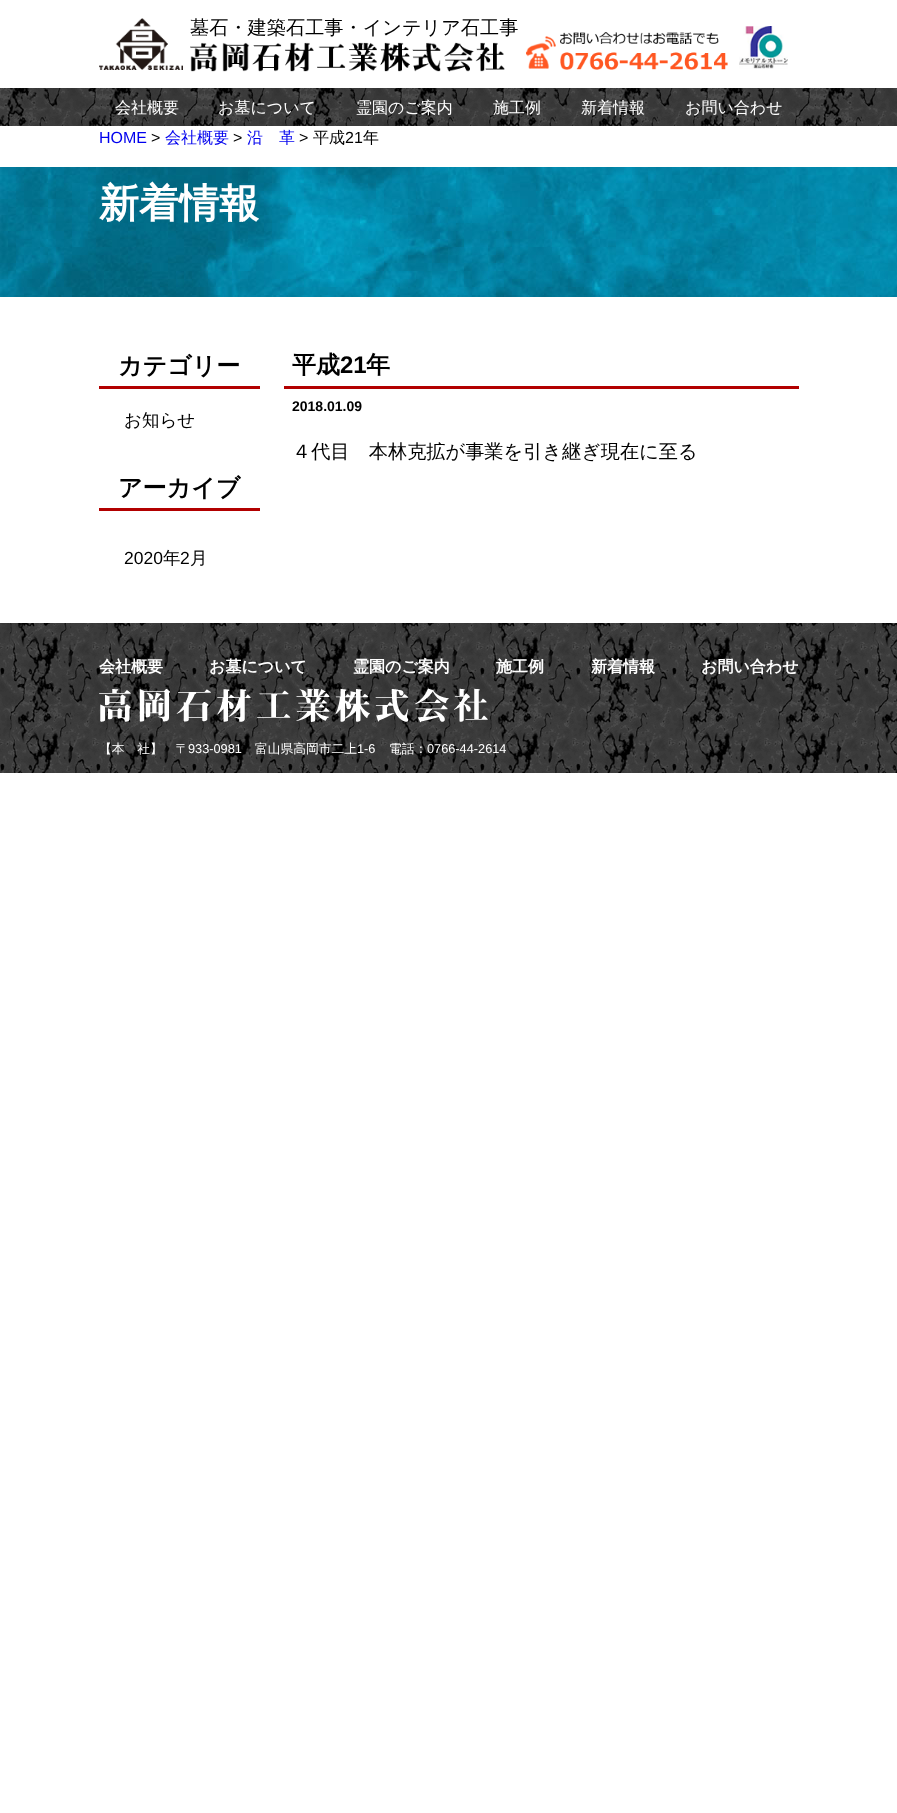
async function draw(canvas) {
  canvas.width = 897
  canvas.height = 1813
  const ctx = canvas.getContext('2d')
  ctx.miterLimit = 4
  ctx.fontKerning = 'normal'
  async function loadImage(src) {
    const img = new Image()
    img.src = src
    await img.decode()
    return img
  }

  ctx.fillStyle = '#fff'
  ctx.fillRect(0, 0, 897, 1813)
  ctx.drawImage(await loadImage('image0.png'), 99, 18, 84, 52)
  ctx.font = '500 19.2px WenQuanYi Zen Hei'
  ctx.fillStyle = '#000'
  ctx.fillText('墓石・建築石工事・インテリア石工事', 190, 34)
  ctx.drawImage(await loadImage('image1.png'), 526, 32, 202, 38)
  ctx.drawImage(await loadImage('image2.png'), 739, 26, 49, 43)
  ctx.drawImage(await loadImage('image3.png'), 190, 42, 315, 30)
  ctx.drawImage(await loadImage('image4.png'), 0, 88, 897, 38)
  ctx.font = '500 16px WenQuanYi Zen Hei'
  ctx.fillStyle = '#fff'
  ctx.fillText('会社概要', 115, 113)
  ctx.fillText('お墓について', 218, 113)
  ctx.fillText('霊園のご案内', 356, 113)
  ctx.fillText('施工例', 493, 113)
  ctx.fillText('新着情報', 581, 113)
  ctx.fillText('お問い合わせ', 685, 113)
  ctx.font = '16px Liberation Sans'
  ctx.fillStyle = '#00e'
  ctx.fillText('HOME', 99, 143)
  ctx.fillStyle = '#000'
  ctx.fillText('>', 151, 143)
  ctx.font = '500 16px WenQuanYi Zen Hei'
  ctx.fillStyle = '#00e'
  ctx.fillText('会社概要', 165, 143)
  ctx.font = '16px Liberation Sans'
  ctx.fillStyle = '#000'
  ctx.fillText('>', 233, 143)
  ctx.font = '500 16px WenQuanYi Zen Hei'
  ctx.fillStyle = '#00e'
  ctx.fillText('沿　革', 247, 143)
  ctx.font = '16px Liberation Sans'
  ctx.fillStyle = '#000'
  ctx.fillText('>', 299, 143)
  ctx.font = '500 16px WenQuanYi Zen Hei'
  ctx.fillText('平成', 313, 143)
  ctx.font = '16px Liberation Sans'
  ctx.fillText('21', 345, 143)
  ctx.font = '500 16px WenQuanYi Zen Hei'
  ctx.fillText('年', 363, 143)
  ctx.drawImage(await loadImage('image5.png'), 0, 167, 897, 130)
  ctx.font = 'bold 40px WenQuanYi Zen Hei'
  ctx.fillStyle = '#fff'
  ctx.fillText('新着情報', 99, 217)
  ctx.fillStyle = '#b20000'
  ctx.fillRect(99, 386, 161, 3)
  ctx.font = 'bold 24px WenQuanYi Zen Hei'
  ctx.fillStyle = '#000'
  ctx.fillText('カテゴリー', 118, 374)
  ctx.font = '500 17.5px WenQuanYi Zen Hei'
  ctx.fillText('お知らせ', 124, 426)
  ctx.fillStyle = '#b20000'
  ctx.fillRect(99, 508, 161, 3)
  ctx.font = 'bold 24px WenQuanYi Zen Hei'
  ctx.fillStyle = '#000'
  ctx.fillText('アーカイブ', 118, 496)
  ctx.font = '17.5px Liberation Sans'
  ctx.fillText('2020', 124, 564)
  ctx.font = '500 17.5px WenQuanYi Zen Hei'
  ctx.fillText('年', 163, 564)
  ctx.font = '17.5px Liberation Sans'
  ctx.fillText('2', 180, 564)
  ctx.font = '500 17.5px WenQuanYi Zen Hei'
  ctx.fillText('月', 190, 564)
  ctx.fillStyle = '#b20000'
  ctx.fillRect(284, 386, 515, 3)
  ctx.font = 'bold 24px WenQuanYi Zen Hei'
  ctx.fillStyle = '#000'
  ctx.fillText('平成', 292, 373)
  ctx.font = 'bold 24px Liberation Sans'
  ctx.fillText('21', 340, 373)
  ctx.font = 'bold 24px WenQuanYi Zen Hei'
  ctx.fillText('年', 366, 373)
  ctx.font = 'bold 14px Liberation Sans'
  ctx.fillText('2018.01.09', 292, 411)
  ctx.font = '500 19.2px WenQuanYi Zen Hei'
  ctx.fillText('４代目　本林克拡が事業を引き継ぎ現在に至る', 292, 458)
  ctx.drawImage(await loadImage('image6.png'), 0, 623, 897, 150)
  ctx.font = 'bold 16px WenQuanYi Zen Hei'
  ctx.fillStyle = '#fff'
  ctx.fillText('会社概要', 99, 672)
  ctx.fillText('お墓について', 209, 672)
  ctx.fillText('霊園のご案内', 353, 672)
  ctx.fillText('施工例', 496, 672)
  ctx.fillText('新着情報', 591, 672)
  ctx.fillText('お問い合わせ', 701, 672)
  ctx.drawImage(await loadImage('image7.png'), 99, 688, 389, 35)
  ctx.font = '500 12.75px WenQuanYi Zen Hei'
  ctx.fillText('【本　社】　〒', 99, 753)
  ctx.font = '12.75px Liberation Sans'
  ctx.fillText('933-0981', 188, 753)
  ctx.font = '500 12.75px WenQuanYi Zen Hei'
  ctx.fillText('富山県高岡市二上', 255, 753)
  ctx.font = '12.75px Liberation Sans'
  ctx.fillText('1-6', 357, 753)
  ctx.font = '500 12.75px WenQuanYi Zen Hei'
  ctx.fillText('電話：', 389, 753)
  ctx.font = '12.75px Liberation Sans'
  ctx.fillText('0766-44-2614', 427, 753)
}

draw(document.querySelector('canvas'))
